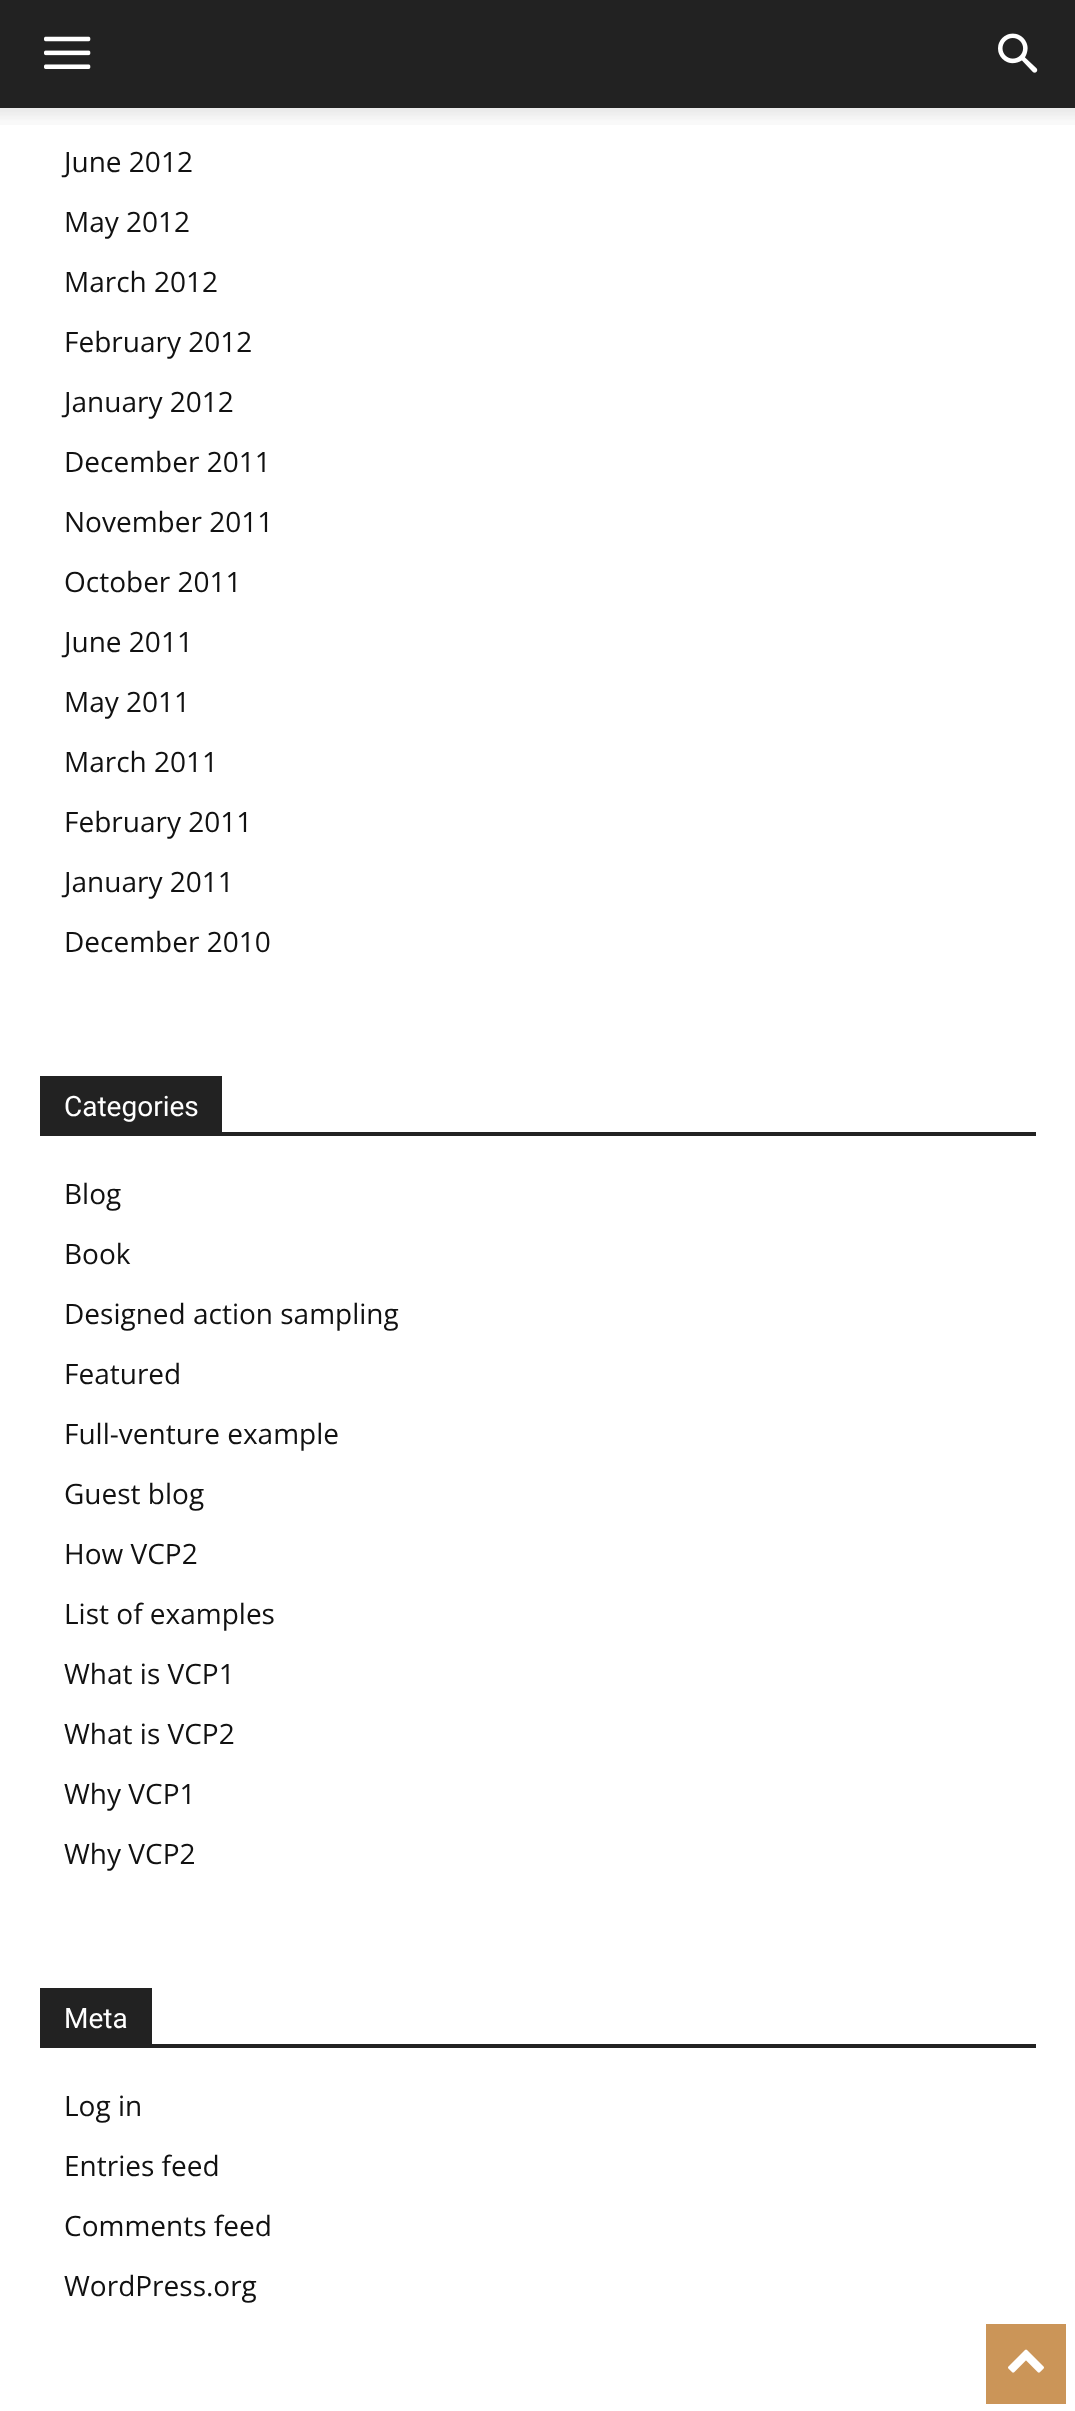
async function draw(canvas) {
  canvas.width = 1075
  canvas.height = 2411
  const ctx = canvas.getContext('2d')
  ctx.miterLimit = 4
  ctx.fontKerning = 'normal'
  async function loadImage(src) {
    const img = new Image()
    img.src = src
    await img.decode()
    return img
  }

  ctx.fillStyle = '#fff'
  ctx.fillRect(0, 0, 1075, 2411)
  ctx.fillStyle = '#222'
  ctx.fillRect(0, 0, 1075, 108)
  ctx.drawImage(await loadImage('image0.png'), 44, 36, 47, 33)
  ctx.drawImage(await loadImage('image1.png'), 998, 33, 40, 40)
  ctx.drawImage(await loadImage('image2.png'), 0, 108, 1075, 17)
  ctx.font = '28px Open Sans'
  ctx.fillStyle = '#111'
  ctx.fillText('June 2012', 64, 172)
  ctx.fillText('May 2012', 64, 232)
  ctx.fillText('March 2012', 64, 292)
  ctx.fillText('February 2012', 64, 352)
  ctx.fillText('January 2012', 64, 412)
  ctx.fillText('December 2011', 64, 472)
  ctx.fillText('November 2011', 64, 532)
  ctx.fillText('October 2011', 64, 592)
  ctx.fillText('June 2011', 64, 652)
  ctx.fillText('May 2011', 64, 712)
  ctx.fillText('March 2011', 64, 772)
  ctx.fillText('February 2011', 64, 832)
  ctx.fillText('January 2011', 64, 892)
  ctx.fillText('December 2010', 64, 952)
  ctx.fillStyle = '#222'
  ctx.fillRect(40, 1132, 996, 4)
  ctx.fillRect(40, 1076, 182, 56)
  ctx.font = '28px Roboto'
  ctx.fillStyle = '#fff'
  ctx.fillText('Categories', 64, 1116)
  ctx.font = '28px Open Sans'
  ctx.fillStyle = '#111'
  ctx.fillText('Blog', 64, 1204)
  ctx.fillText('Book', 64, 1264)
  ctx.fillText('Designed action sampling', 64, 1324)
  ctx.fillText('Featured', 64, 1384)
  ctx.fillText('Full-venture example', 64, 1444)
  ctx.fillText('Guest blog', 64, 1504)
  ctx.fillText('How VCP2', 64, 1564)
  ctx.fillText('List of examples', 64, 1624)
  ctx.fillText('What is VCP1', 64, 1684)
  ctx.fillText('What is VCP2', 64, 1744)
  ctx.fillText('Why VCP1', 64, 1804)
  ctx.fillText('Why VCP2', 64, 1864)
  ctx.fillStyle = '#222'
  ctx.fillRect(40, 2044, 996, 4)
  ctx.fillRect(40, 1988, 112, 56)
  ctx.font = '28px Roboto'
  ctx.fillStyle = '#fff'
  ctx.fillText('Meta', 64, 2028)
  ctx.font = '28px Open Sans'
  ctx.fillStyle = '#111'
  ctx.fillText('Log in', 64, 2116)
  ctx.fillText('Entries feed', 64, 2176)
  ctx.fillText('Comments feed', 64, 2236)
  ctx.fillText('WordPress.org', 64, 2296)
  ctx.fillStyle = '#cb9558'
  ctx.fillRect(986, 2324, 80, 80)
  ctx.drawImage(await loadImage('image3.png'), 1008, 2349, 36, 24)
}

draw(document.querySelector('canvas'))
